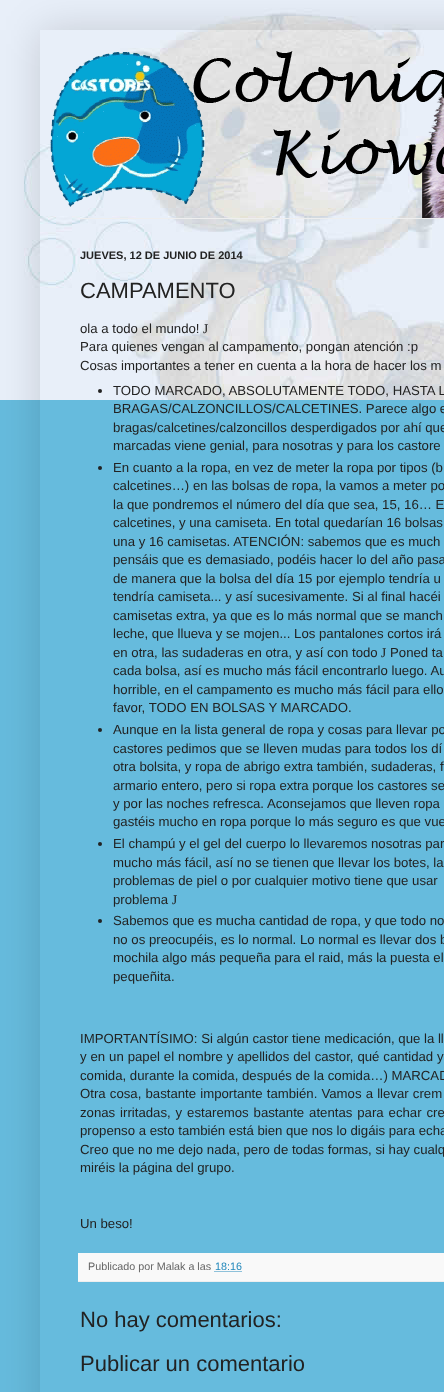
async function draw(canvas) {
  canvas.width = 444
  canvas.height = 1392
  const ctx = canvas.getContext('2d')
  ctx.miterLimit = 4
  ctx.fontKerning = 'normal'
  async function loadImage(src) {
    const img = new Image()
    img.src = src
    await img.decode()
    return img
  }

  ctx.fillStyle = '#6bd'
  ctx.fillRect(0, 0, 444, 1392)
  ctx.drawImage(await loadImage('image0.png'), 0, 0, 444, 400)
  ctx.save()
  ctx.beginPath()
  ctx.moveTo(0, 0)
  ctx.lineTo(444, 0)
  ctx.lineTo(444, 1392)
  ctx.lineTo(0, 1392)
  ctx.closePath()
  ctx.moveTo(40, 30)
  ctx.lineTo(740, 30)
  ctx.lineTo(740, 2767)
  ctx.lineTo(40, 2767)
  ctx.closePath()
  ctx.clip('evenodd')
  ctx.fillStyle = '#00000026'
  ctx.filter = 'blur(20px)'
  ctx.beginPath()
  ctx.rect(40, 30, 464, 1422)
  ctx.fill()
  ctx.filter = 'none'
  ctx.restore()
  ctx.drawImage(await loadImage('image1.png'), 50, 51, 394, 167)
  ctx.fillStyle = '#eee'
  ctx.fillRect(80, 218, 364, 1)
  ctx.font = 'bold 11px Liberation Sans'
  ctx.fillStyle = '#222'
  ctx.fillText('JUEVES, 12 DE JUNIO DE 2014', 80, 259)
  ctx.font = '22px Liberation Sans'
  ctx.fillText('CAMPAMENTO', 80, 298)
  ctx.font = '13.2px Liberation Sans'
  ctx.fillText('ola a todo el mundo!', 80, 333)
  ctx.font = '13.2px Liberation Serif'
  ctx.fillText('J', 203, 333)
  ctx.font = '13.2px Liberation Sans'
  ctx.fillText('Para quienes vengan al campamento, pongan atención :p', 80, 351)
  ctx.fillText('Cosas importantes a tener en cuenta a la hora de hacer los m', 80, 370)
  ctx.beginPath()
  ctx.arc(100, 391, 2, 0, 2 * Math.PI)
  ctx.fill()
  ctx.fillText('TODO MARCADO, ABSOLUTAMENTE TODO, HASTA L', 113, 395)
  ctx.fillText('BRAGAS/CALZONCILLOS/CALCETINES. Parece algo e', 113, 413)
  ctx.fillText('bragas/calcetines/calzoncillos desperdigados por ahí que', 113, 432)
  ctx.fillText('marcadas viene genial, para nosotras y para los castore', 113, 450)
  ctx.beginPath()
  ctx.arc(100, 468, 2, 0, 2 * Math.PI)
  ctx.fill()
  ctx.fillText('En cuanto a la ropa, en vez de meter la ropa por tipos (b', 113, 472)
  ctx.fillText('calcetines…) en las bolsas de ropa, la vamos a meter po', 113, 490)
  ctx.fillText('la que pondremos el número del día que sea, 15, 16… E', 113, 509)
  ctx.fillText('calcetines, y una camiseta. En total quedarían 16 bolsas', 113, 527)
  ctx.fillText('una y 16 camisetas. ATENCIÓN: sabemos que es much', 113, 546)
  ctx.fillText('pensáis que es demasiado, podéis hacer lo del año pasa', 113, 564)
  ctx.fillText('de manera que la bolsa del día 15 por ejemplo tendría u', 113, 583)
  ctx.fillText('tendría camiseta... y así sucesivamente. Si al final hacéi', 113, 601)
  ctx.fillText('camisetas extra, ya que es lo más normal que se manch', 113, 620)
  ctx.fillText('leche, que llueva y se mojen... Los pantalones cortos irá', 113, 638)
  ctx.fillText('en otra, las sudaderas en otra, y así con todo', 113, 657)
  ctx.font = '13.2px Liberation Serif'
  ctx.fillText('J', 381, 657)
  ctx.font = '13.2px Liberation Sans'
  ctx.fillText('Poned ta', 390, 657)
  ctx.fillText('cada bolsa, así es mucho más fácil encontrarlo luego. Au', 113, 675)
  ctx.fillText('horrible, en el campamento es mucho más fácil para ello', 113, 694)
  ctx.fillText('favor, TODO EN BOLSAS Y MARCADO.', 113, 712)
  ctx.beginPath()
  ctx.arc(100, 730, 2, 0, 2 * Math.PI)
  ctx.fill()
  ctx.fillText('Aunque en la lista general de ropa y cosas para llevar po', 113, 734)
  ctx.fillText('castores pedimos que se lleven mudas para todos los dí', 113, 753)
  ctx.fillText('otra bolsita, y ropa de abrigo extra también, sudaderas, f', 113, 771)
  ctx.fillText('armario entero, pero si ropa extra porque los castores se', 113, 790)
  ctx.fillText('y por las noches refresca. Aconsejamos que lleven ropa', 113, 808)
  ctx.fillText('gastéis mucho en ropa porque lo más seguro es que vue', 113, 826)
  ctx.beginPath()
  ctx.arc(100, 844, 2, 0, 2 * Math.PI)
  ctx.fill()
  ctx.fillText('El champú y el gel del cuerpo lo llevaremos nosotras par', 113, 848)
  ctx.fillText('mucho más fácil, así no se tienen que llevar los botes, la', 113, 867)
  ctx.fillText('problemas de piel o por cualquier motivo tiene que usar', 113, 885)
  ctx.fillText('problema', 113, 904)
  ctx.font = '13.2px Liberation Serif'
  ctx.fillText('J', 172, 904)
  ctx.beginPath()
  ctx.arc(100, 921, 2, 0, 2 * Math.PI)
  ctx.fill()
  ctx.font = '13.2px Liberation Sans'
  ctx.fillText('Sabemos que es mucha cantidad de ropa, y que todo no', 113, 925)
  ctx.fillText('no os preocupéis, es lo normal. Lo normal es llevar dos b', 113, 944)
  ctx.fillText('mochila algo más pequeña para el raid, más la puesta el', 113, 962)
  ctx.fillText('pequeñita.', 113, 981)
  ctx.fillText('IMPORTANTÍSIMO: Si algún castor tiene medicación, que la ll', 80, 1043)
  ctx.wordSpacing = '0.25px'
  ctx.fillText('y en un papel el nombre y apellidos del castor, qué cantidad y', 80, 1061)
  ctx.wordSpacing = '0px'
  ctx.fillText('comida, durante la comida, después de la comida…) MARCAD', 80, 1080)
  ctx.wordSpacing = '0.5px'
  ctx.fillText('Otra cosa, bastante importante también. Vamos a llevar crem', 80, 1098)
  ctx.wordSpacing = '1.25px'
  ctx.fillText('zonas irritadas, y estaremos bastante atentas para echar cre', 80, 1117)
  ctx.wordSpacing = '0px'
  ctx.fillText('propenso a esto también está bien que nos lo digáis para echa', 80, 1135)
  ctx.fillText('Creo que no me dejo nada, pero de todas formas, si hay cualq', 80, 1154)
  ctx.fillText('miréis la página del grupo.', 80, 1172)
  ctx.fillText('Un beso!', 80, 1228)
  ctx.fillStyle = '#f9f9f9'
  ctx.fillRect(78, 1253, 366, 28)
  ctx.fillStyle = '#eee'
  ctx.fillRect(78, 1281, 366, 1)
  ctx.font = '10.75px Liberation Sans'
  ctx.fillStyle = '#666'
  ctx.fillText('Publicado por Malak a las', 88, 1270)
  ctx.fillStyle = '#28b'
  ctx.fillText('18:16', 215, 1270)
  ctx.beginPath()
  ctx.moveTo(214.5, 1271.5)
  ctx.lineTo(241.5, 1271.5)
  ctx.strokeStyle = '#28b'
  ctx.setLineDash([1, 1])
  ctx.stroke()
  ctx.font = '22px Liberation Sans'
  ctx.fillStyle = '#222'
  ctx.fillText('No hay comentarios:', 80, 1327)
  ctx.fillText('Publicar un comentario', 80, 1371)
}

draw(document.querySelector('canvas'))
